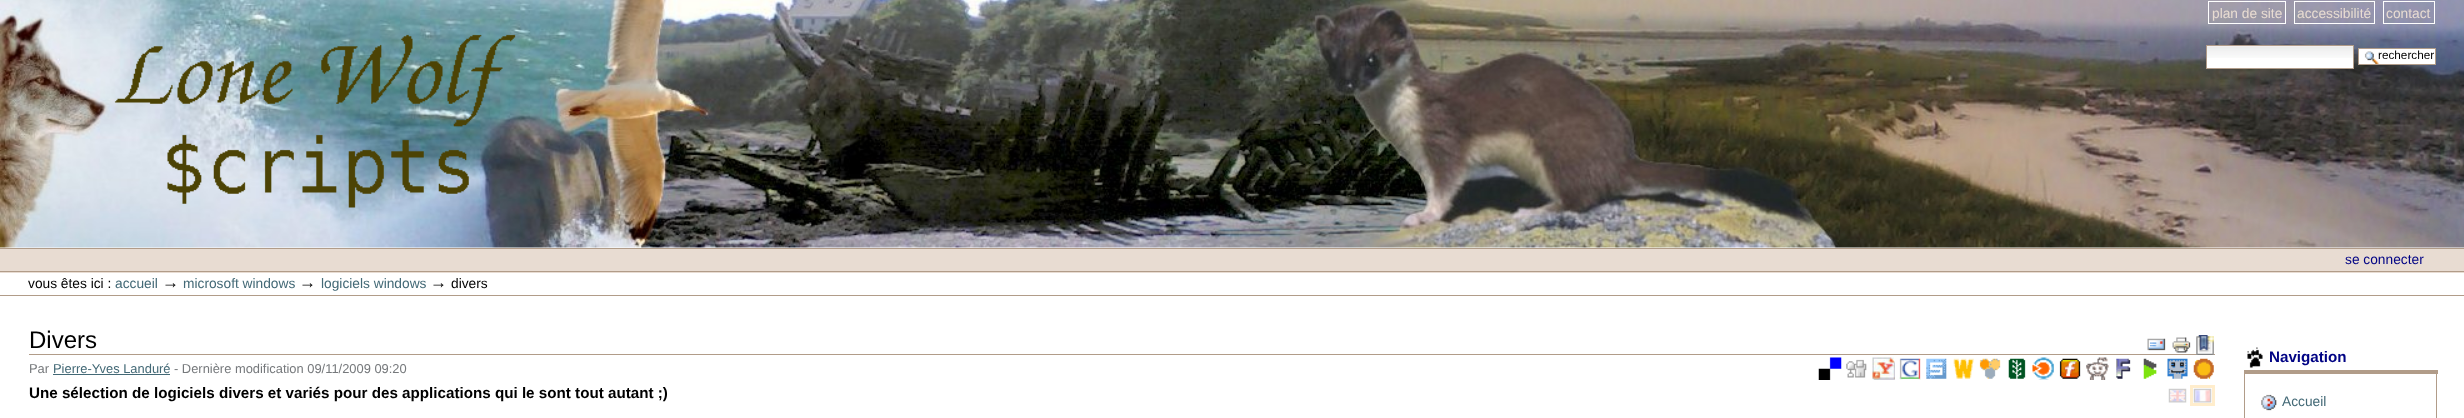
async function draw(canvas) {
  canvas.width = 2464
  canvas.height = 418
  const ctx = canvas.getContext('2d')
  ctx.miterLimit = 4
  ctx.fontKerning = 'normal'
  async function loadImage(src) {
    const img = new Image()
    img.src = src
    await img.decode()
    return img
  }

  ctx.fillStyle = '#fff'
  ctx.fillRect(0, 0, 2464, 418)
  ctx.drawImage(await loadImage('image0.png'), 0, 0, 2464, 248)
  ctx.strokeStyle = '#fff'
  ctx.strokeRect(2208.5, 1.5, 77, 22)
  ctx.font = '13.75px Liberation Sans'
  ctx.fillStyle = '#e8dcd2'
  ctx.fillText('plan de site', 2212, 18)
  ctx.strokeRect(2294.5, 1.5, 80, 22)
  ctx.fillText('accessibilité', 2297, 18)
  ctx.strokeRect(2383.5, 1.5, 51, 22)
  ctx.fillText('contact', 2386, 18)
  ctx.drawImage(await loadImage('image1.png'), 114, 34, 402, 174)
  ctx.fillStyle = '#fff'
  ctx.fillRect(2207, 46, 146, 22)
  ctx.drawImage(await loadImage('image2.png'), 2207, 46, 146, 12)
  ctx.strokeStyle = '#b19c89'
  ctx.strokeRect(2206.5, 45.5, 147, 23)
  ctx.fillRect(2359, 49, 76, 15)
  ctx.drawImage(await loadImage('image3.png'), 2364, 51, 15, 13)
  ctx.strokeRect(2358.5, 48.5, 77, 16)
  ctx.font = '11.75px Liberation Sans'
  ctx.fillStyle = '#000'
  ctx.fillText('rechercher', 2378, 59)
  ctx.fillStyle = '#e8dcd2'
  ctx.fillRect(0, 249, 2464, 24)
  ctx.fillStyle = '#b19c89'
  ctx.fillRect(0, 248, 2464, 1)
  ctx.fillRect(0, 271, 2464, 1)
  ctx.font = '13.75px Liberation Sans'
  ctx.fillStyle = '#000384'
  ctx.fillText('se connecter', 2345, 264)
  ctx.fillStyle = '#b19c89'
  ctx.fillRect(0, 295, 2464, 1)
  ctx.fillStyle = '#000'
  ctx.fillText('vous êtes ici :', 28, 288)
  ctx.fillStyle = '#436976'
  ctx.fillText('accueil', 115, 288)
  ctx.font = '17px Liberation Sans'
  ctx.fillStyle = '#000'
  ctx.fillText('→', 162, 288)
  ctx.font = '13.75px Liberation Sans'
  ctx.fillStyle = '#436976'
  ctx.fillText('microsoft windows', 183, 288)
  ctx.font = '17px Liberation Sans'
  ctx.fillStyle = '#000'
  ctx.fillText('→', 299, 288)
  ctx.font = '13.75px Liberation Sans'
  ctx.fillStyle = '#436976'
  ctx.fillText('logiciels windows', 321, 288)
  ctx.font = '17px Liberation Sans'
  ctx.fillStyle = '#000'
  ctx.fillText('→', 430, 288)
  ctx.font = '13.75px Liberation Sans'
  ctx.fillText('divers', 451, 288)
  ctx.fillStyle = '#b19c89'
  ctx.fillRect(29, 354, 2186, 1)
  ctx.font = '24px Liberation Sans'
  ctx.fillStyle = '#000'
  ctx.fillText('Divers', 29, 348)
  ctx.drawImage(await loadImage('image4.png'), 2196, 335, 18, 20)
  ctx.drawImage(await loadImage('image5.png'), 1818, 357, 24, 23)
  ctx.drawImage(await loadImage('image6.png'), 1846, 359, 21, 19)
  ctx.drawImage(await loadImage('image7.png'), 1872, 357, 23, 23)
  ctx.drawImage(await loadImage('image8.png'), 1899, 358, 22, 22)
  ctx.drawImage(await loadImage('image9.png'), 1926, 358, 21, 21)
  ctx.drawImage(await loadImage('image10.png'), 1953, 358, 21, 21)
  ctx.drawImage(await loadImage('image11.png'), 1979, 358, 22, 21)
  ctx.drawImage(await loadImage('image12.png'), 2008, 358, 18, 21)
  ctx.drawImage(await loadImage('image13.png'), 2032, 357, 22, 23)
  ctx.drawImage(await loadImage('image14.png'), 2059, 358, 22, 21)
  ctx.drawImage(await loadImage('image15.png'), 2086, 357, 23, 23)
  ctx.drawImage(await loadImage('image16.png'), 2116, 358, 15, 21)
  ctx.drawImage(await loadImage('image17.png'), 2143, 358, 14, 21)
  ctx.drawImage(await loadImage('image18.png'), 2167, 358, 21, 21)
  ctx.drawImage(await loadImage('image19.png'), 2193, 358, 21, 21)
  ctx.drawImage(await loadImage('image20.png'), 2147, 338, 19, 13)
  ctx.drawImage(await loadImage('image21.png'), 2172, 337, 19, 16)
  ctx.drawImage(await loadImage('image22.png'), 2168, 388, 19, 15)
  ctx.strokeStyle = '#ffedcc'
  ctx.lineWidth = 3
  ctx.strokeRect(2191.5, 386.5, 22, 18)
  ctx.drawImage(await loadImage('image23.png'), 2193, 388, 19, 15)
  ctx.font = '12.9px Liberation Sans'
  ctx.fillStyle = '#76797c'
  ctx.fillText('Par', 29, 373)
  ctx.fillStyle = '#436976'
  ctx.fillText('Pierre-Yves Landuré', 53, 373)
  ctx.fillRect(53, 374, 117, 1)
  ctx.fillStyle = '#76797c'
  ctx.fillText('- Dernière modification 09/11/2009 09:20', 174, 373)
  ctx.font = 'bold 15.2px Liberation Sans'
  ctx.fillStyle = '#000'
  ctx.fillText('Une sélection de logiciels divers et variés pour des applications qui le sont tout autant ;)', 29, 398)
  ctx.drawImage(await loadImage('image24.png'), 2247, 347, 16, 21)
  ctx.fillStyle = '#b19c89'
  ctx.fillRect(2244, 370, 194, 4)
  ctx.fillStyle = '#000384'
  ctx.fillText('Navigation', 2269, 362)
  ctx.fillStyle = '#b19c89'
  ctx.fillRect(2436, 374, 1, 44)
  ctx.fillRect(2244, 374, 1, 44)
  ctx.drawImage(await loadImage('image25.png'), 2261, 394, 16, 17)
  ctx.font = '13.75px Liberation Sans'
  ctx.fillStyle = '#436976'
  ctx.fillText('Accueil', 2282, 406)
}

draw(document.querySelector('canvas'))
